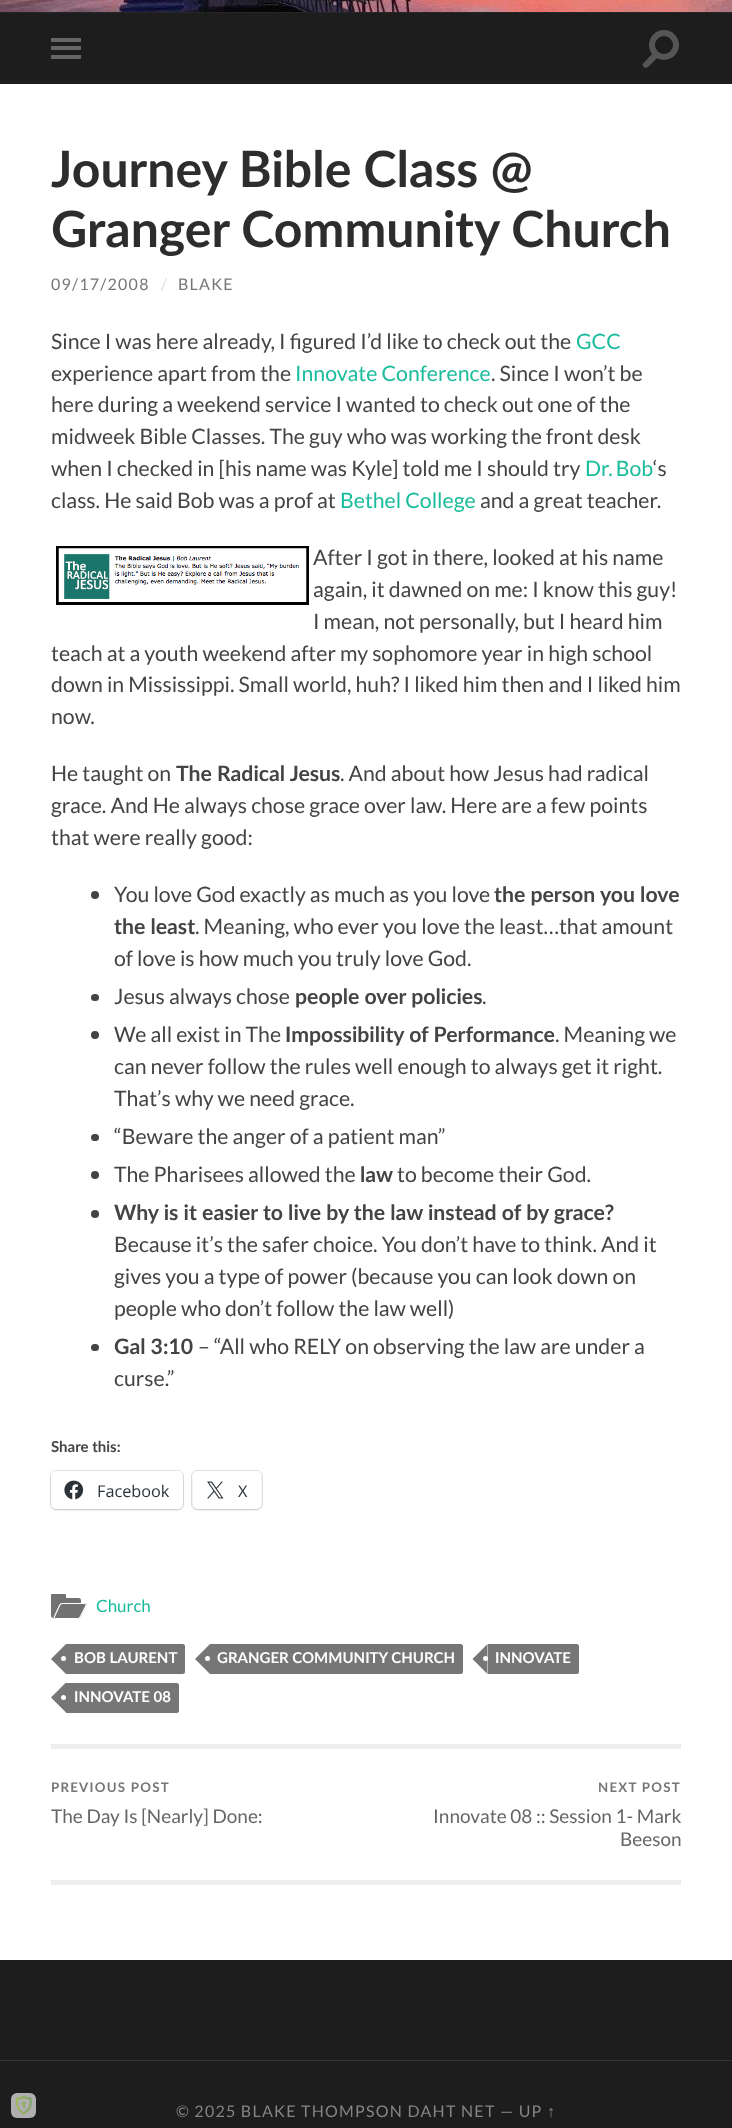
async function draw(canvas) {
  canvas.width = 732
  canvas.height = 2128
  const ctx = canvas.getContext('2d')
  ctx.miterLimit = 4
  ctx.fontKerning = 'normal'
  async function loadImage(src) {
    const img = new Image()
    img.src = src
    await img.decode()
    return img
  }

  ctx.fillStyle = '#fff'
  ctx.fillRect(0, 0, 732, 2128)
  ctx.fillStyle = '#1d1d1d'
  ctx.fillRect(0, 2061, 732, 67)
  ctx.fillStyle = '#b1b1b1fc'
  ctx.beginPath()
  ctx.roundRect(11, 2093, 25, 25, 6)
  ctx.fill()
  ctx.drawImage(await loadImage('image0.png'), 15, 2095, 17, 20)
  ctx.fillStyle = '#262626'
  ctx.fillRect(0, 12, 732, 1)
  ctx.drawImage(await loadImage('image1.png'), 0, 0, 732, 12)
  ctx.fillStyle = '#1d1d1d'
  ctx.fillRect(0, 13, 732, 71)
  ctx.fillStyle = '#666'
  ctx.fillRect(51, 38, 30, 4)
  ctx.fillRect(51, 46, 30, 4)
  ctx.fillRect(51, 55, 30, 4)
  ctx.fillStyle = '#555'
  ctx.beginPath()
  ctx.arc(664, 45, 15, 0, 2 * Math.PI)
  ctx.fill()
  ctx.fillStyle = '#1d1d1d'
  ctx.beginPath()
  ctx.arc(664, 45, 9, 0, 2 * Math.PI)
  ctx.fill()
  ctx.fillStyle = '#555'
  ctx.beginPath()
  ctx.moveTo(643.5, 63)
  ctx.lineTo(654, 52)
  ctx.lineTo(658.5, 56.5)
  ctx.lineTo(651.5, 63.5)
  ctx.bezierCurveTo(649, 66, 646, 70.5, 643, 66)
  ctx.bezierCurveTo(642.5, 65, 642.5, 63.5, 643.5, 63)
  ctx.closePath()
  ctx.fill()
  ctx.font = 'bold 50px Lato'
  ctx.fillStyle = '#2d2d2d'
  ctx.fillText('Journey Bible Class @', 51, 187)
  ctx.fillText('Granger Community Church', 51, 247)
  ctx.letterSpacing = '1.25px'
  ctx.font = '16px Lato'
  ctx.fillStyle = '#767676'
  ctx.fillText('09/17/2008', 51, 290)
  ctx.fillStyle = '#ddd'
  ctx.fillText('/', 161, 290)
  ctx.fillStyle = '#767676'
  ctx.fillText('BLAKE', 178, 290)
  ctx.letterSpacing = '0px'
  ctx.font = '21.25px Lato'
  ctx.fillStyle = '#444'
  ctx.fillText('Since I was here already, I figured I’d like to check out the', 51, 349)
  ctx.fillStyle = '#1abc9c'
  ctx.fillText('GCC', 576, 349)
  ctx.fillStyle = '#444'
  ctx.fillText('experience apart from the', 51, 381)
  ctx.fillStyle = '#1abc9c'
  ctx.fillText('Innovate Conference', 295, 381)
  ctx.fillStyle = '#444'
  ctx.fillText('. Since I won’t be', 491, 381)
  ctx.fillText('here during a weekend service I wanted to check out one of the', 51, 412)
  ctx.fillText('midweek Bible Classes. The guy who was working the front desk', 51, 444)
  ctx.fillText('when I checked in [his name was Kyle] told me I should try', 51, 476)
  ctx.wordSpacing = '-1px'
  ctx.fillStyle = '#1abc9c'
  ctx.fillText('Dr. Bob', 585, 476)
  ctx.wordSpacing = '0px'
  ctx.fillStyle = '#444'
  ctx.fillText('‘s', 653, 476)
  ctx.fillText('class. He said Bob was a prof at', 51, 508)
  ctx.fillStyle = '#1abc9c'
  ctx.fillText('Bethel College', 340, 508)
  ctx.fillStyle = '#444'
  ctx.fillText('and a great teacher.', 480, 508)
  ctx.strokeStyle = '#000'
  ctx.lineWidth = 3
  ctx.strokeRect(57.5, 547.5, 250, 56)
  ctx.drawImage(await loadImage('image2.png'), 58, 548, 249, 54)
  ctx.fillText('After I got in there, looked at his name', 313, 565)
  ctx.fillText('again, it dawned on me: I know this guy!', 313, 597)
  ctx.fillText('I mean, not personally, but I heard him', 313, 629)
  ctx.fillText('teach at a youth weekend after my sophomore year in high school', 51, 661)
  ctx.fillText('down in Mississippi. Small world, huh? I liked him then and I liked him', 51, 692)
  ctx.fillText('now.', 51, 724)
  ctx.fillText('He taught on', 51, 781)
  ctx.font = 'bold 21.25px Lato'
  ctx.fillText('The Radical Jesus', 176, 781)
  ctx.font = '21.25px Lato'
  ctx.fillText('. And about how Jesus had radical', 340, 781)
  ctx.fillText('grace. And He always chose grace over law. Here are a few points', 51, 813)
  ctx.fillText('that were really good:', 51, 845)
  ctx.beginPath()
  ctx.arc(95, 895, 4, 0, 2 * Math.PI)
  ctx.fill()
  ctx.fillText('You love God exactly as much as you love', 114, 902)
  ctx.font = 'bold 21.25px Lato'
  ctx.fillText('the person you love', 494, 902)
  ctx.fillText('the least', 114, 934)
  ctx.font = '21.25px Lato'
  ctx.fillText('. Meaning, who ever you love the least…that amount', 195, 934)
  ctx.fillText('of love is how much you truly love God.', 114, 966)
  ctx.beginPath()
  ctx.roundRect(91, 994, 8, 7, 3.5)
  ctx.fill()
  ctx.fillText('Jesus always chose', 114, 1004)
  ctx.font = 'bold 21.25px Lato'
  ctx.fillText('people over policies', 295, 1004)
  ctx.font = '21.25px Lato'
  ctx.fillText('.', 482, 1004)
  ctx.beginPath()
  ctx.arc(95, 1035, 4, 0, 2 * Math.PI)
  ctx.fill()
  ctx.fillText('We all exist in The', 114, 1042)
  ctx.font = 'bold 21.25px Lato'
  ctx.fillText('Impossibility of Performance', 285, 1042)
  ctx.font = '21.25px Lato'
  ctx.fillText('. Meaning we', 555, 1042)
  ctx.fillText('can never follow the rules well enough to always get it right.', 114, 1074)
  ctx.fillText('That’s why we need grace.', 114, 1106)
  ctx.beginPath()
  ctx.roundRect(91, 1134, 8, 7, 3.5)
  ctx.fill()
  ctx.fillText('“Beware the anger of a patient man”', 114, 1144)
  ctx.beginPath()
  ctx.arc(95, 1175, 4, 0, 2 * Math.PI)
  ctx.fill()
  ctx.fillText('The Pharisees allowed the', 114, 1182)
  ctx.font = 'bold 21.25px Lato'
  ctx.fillText('law', 360, 1182)
  ctx.font = '21.25px Lato'
  ctx.fillText('to become their God.', 397, 1182)
  ctx.beginPath()
  ctx.arc(95, 1214, 4, 0, 2 * Math.PI)
  ctx.fill()
  ctx.font = 'bold 21.25px Lato'
  ctx.fillText('Why is it easier to live by the law instead of by grace?', 114, 1220)
  ctx.font = '21.25px Lato'
  ctx.fillText('Because it’s the safer choice. You don’t have to think. And it', 114, 1252)
  ctx.fillText('gives you a type of power (because you can look down on', 114, 1284)
  ctx.fillText('people who don’t follow the law well)', 114, 1316)
  ctx.beginPath()
  ctx.roundRect(91, 1344, 8, 7, 3.5)
  ctx.fill()
  ctx.font = 'bold 21.25px Lato'
  ctx.fillText('Gal 3:10', 114, 1354)
  ctx.font = '21.25px Lato'
  ctx.fillText('– “All who RELY on observing the law are under a', 198, 1354)
  ctx.fillText('curse.”', 114, 1386)
  ctx.font = 'bold 15px Lato'
  ctx.fillText('Share this:', 51, 1452)
  ctx.beginPath()
  ctx.roundRect(50.5, 1470.5, 133, 39, 5.5)
  ctx.strokeStyle = '#e0e0e0'
  ctx.lineWidth = 1
  ctx.stroke()
  ctx.fillStyle = '#0000001f'
  ctx.filter = 'blur(1px)'
  ctx.beginPath()
  ctx.roundRect(51, 1473, 132, 37, 5)
  ctx.fill()
  ctx.filter = 'none'
  ctx.fillStyle = '#fff'
  ctx.beginPath()
  ctx.roundRect(51, 1471, 132, 38, 5)
  ctx.fill()
  ctx.drawImage(await loadImage('image3.png'), 64, 1480, 20, 20)
  ctx.font = '16.25px Open Sans'
  ctx.fillStyle = '#2c3338'
  ctx.fillText('Facebook', 97, 1497)
  ctx.beginPath()
  ctx.roundRect(191.5, 1470.5, 71, 39, 5.5)
  ctx.stroke()
  ctx.fillStyle = '#0000001f'
  ctx.filter = 'blur(1px)'
  ctx.beginPath()
  ctx.roundRect(193, 1473, 68, 37, 5)
  ctx.fill()
  ctx.filter = 'none'
  ctx.fillStyle = '#fff'
  ctx.beginPath()
  ctx.roundRect(193, 1471, 68, 38, 5)
  ctx.fill()
  ctx.drawImage(await loadImage('image4.png'), 207, 1481, 17, 18)
  ctx.fillStyle = '#2c3338'
  ctx.fillText('X', 238, 1497)
  ctx.fillStyle = '#727272'
  ctx.beginPath()
  ctx.roundRect(51, 1598, 30, 20, [0, 2.5, 2.5, 2.5])
  ctx.fill()
  ctx.beginPath()
  ctx.roundRect(51, 1594, 15, 4, [1, 1, 0, 0])
  ctx.fill()
  ctx.beginPath()
  ctx.moveTo(62.5, 1603)
  ctx.lineTo(85, 1603)
  ctx.bezierCurveTo(86.5, 1603, 87, 1604, 86.5, 1605.5)
  ctx.lineTo(81, 1616.5)
  ctx.bezierCurveTo(80.5, 1618, 79, 1619, 77.5, 1619)
  ctx.lineTo(55, 1619)
  ctx.bezierCurveTo(53.5, 1619, 53, 1618, 53.5, 1616.5)
  ctx.lineTo(59, 1605.5)
  ctx.bezierCurveTo(59.5, 1604, 61, 1603, 62.5, 1603)
  ctx.closePath()
  ctx.fill()
  ctx.beginPath()
  ctx.moveTo(62.5, 1603.5)
  ctx.lineTo(85, 1603.5)
  ctx.bezierCurveTo(86, 1603.5, 86.5, 1604.5, 86, 1605.5)
  ctx.lineTo(80.5, 1616.5)
  ctx.bezierCurveTo(80, 1617.5, 79, 1618.5, 78, 1618.5)
  ctx.lineTo(55.5, 1618.5)
  ctx.bezierCurveTo(54, 1618.5, 54, 1617.5, 54.5, 1616.5)
  ctx.lineTo(59.5, 1605.5)
  ctx.bezierCurveTo(60, 1604.5, 61, 1603.5, 62.5, 1603.5)
  ctx.closePath()
  ctx.strokeStyle = '#fff'
  ctx.lineWidth = 1.2
  ctx.stroke()
  ctx.font = '17px Lato'
  ctx.fillStyle = '#1abc9c'
  ctx.fillText('Church', 96, 1612)
  ctx.fillStyle = '#767676'
  ctx.beginPath()
  ctx.roundRect(66, 1644, 119, 30, [0, 2.5, 2.5, 0])
  ctx.fill()
  ctx.beginPath()
  ctx.moveTo(66, 1644)
  ctx.lineTo(66, 1674)
  ctx.lineTo(51, 1659)
  ctx.closePath()
  ctx.fill()
  ctx.font = 'bold 15px Lato'
  ctx.fillStyle = '#fff'
  ctx.fillText('BOB LAURENT', 74, 1663)
  ctx.beginPath()
  ctx.arc(63.5, 1658.5, 2.5, 0, 2 * Math.PI)
  ctx.fill()
  ctx.fillStyle = '#767676'
  ctx.beginPath()
  ctx.roundRect(210, 1644, 253, 30, [0, 2.5, 2.5, 0])
  ctx.fill()
  ctx.beginPath()
  ctx.moveTo(210, 1644)
  ctx.lineTo(210, 1674)
  ctx.lineTo(195, 1659)
  ctx.closePath()
  ctx.fill()
  ctx.fillStyle = '#fff'
  ctx.fillText('GRANGER COMMUNITY CHURCH', 217, 1663)
  ctx.beginPath()
  ctx.arc(207.5, 1658.5, 2.5, 0, 2 * Math.PI)
  ctx.fill()
  ctx.fillStyle = '#767676'
  ctx.beginPath()
  ctx.roundRect(488, 1644, 91, 30, [0, 2.5, 2.5, 0])
  ctx.fill()
  ctx.beginPath()
  ctx.moveTo(487.5, 1644)
  ctx.lineTo(487.5, 1674)
  ctx.lineTo(472.5, 1659)
  ctx.closePath()
  ctx.fill()
  ctx.fillStyle = '#fff'
  ctx.fillText('INNOVATE', 495, 1663)
  ctx.beginPath()
  ctx.arc(485.5, 1658.5, 2.5, 0, 2 * Math.PI)
  ctx.fill()
  ctx.fillStyle = '#767676'
  ctx.beginPath()
  ctx.roundRect(66, 1683, 113, 30, [0, 2.5, 2.5, 0])
  ctx.fill()
  ctx.beginPath()
  ctx.moveTo(66, 1682.5)
  ctx.lineTo(66, 1712.5)
  ctx.lineTo(51, 1697.5)
  ctx.closePath()
  ctx.fill()
  ctx.fillStyle = '#fff'
  ctx.fillText('INNOVATE 08', 74, 1702)
  ctx.beginPath()
  ctx.arc(63.5, 1697.5, 2.5, 0, 2 * Math.PI)
  ctx.fill()
  ctx.fillStyle = '#eee'
  ctx.fillRect(51, 1744, 630, 5)
  ctx.fillRect(51, 1880, 630, 5)
  ctx.letterSpacing = '1.25px'
  ctx.font = 'bold 13.25px Lato'
  ctx.fillStyle = '#767676'
  ctx.fillText('PREVIOUS POST', 51, 1792)
  ctx.letterSpacing = '0px'
  ctx.font = '19px Lato'
  ctx.fillStyle = '#666'
  ctx.fillText('The Day Is [Nearly] Done:', 51, 1823)
  ctx.letterSpacing = '1.25px'
  ctx.font = 'bold 13.25px Lato'
  ctx.fillStyle = '#767676'
  ctx.fillText('NEXT POST', 598, 1792)
  ctx.letterSpacing = '0px'
  ctx.font = '19px Lato'
  ctx.fillStyle = '#666'
  ctx.fillText('Innovate 08 :: Session 1- Mark', 433, 1823)
  ctx.fillText('Beeson', 620, 1846)
  ctx.fillStyle = '#1d1d1d'
  ctx.fillRect(0, 1960, 732, 100)
  ctx.fillStyle = '#343434'
  ctx.fillRect(0, 2060, 732, 1)
  ctx.letterSpacing = '1.25px'
  ctx.font = '16px Lato'
  ctx.fillStyle = '#858585'
  ctx.fillText('© 2025 BLAKE THOMPSON DAHT NET — UP', 176, 2117)
  ctx.font = '16px Liberation Sans'
  ctx.fillText('↑', 547, 2117)
}

draw(document.querySelector('canvas'))
